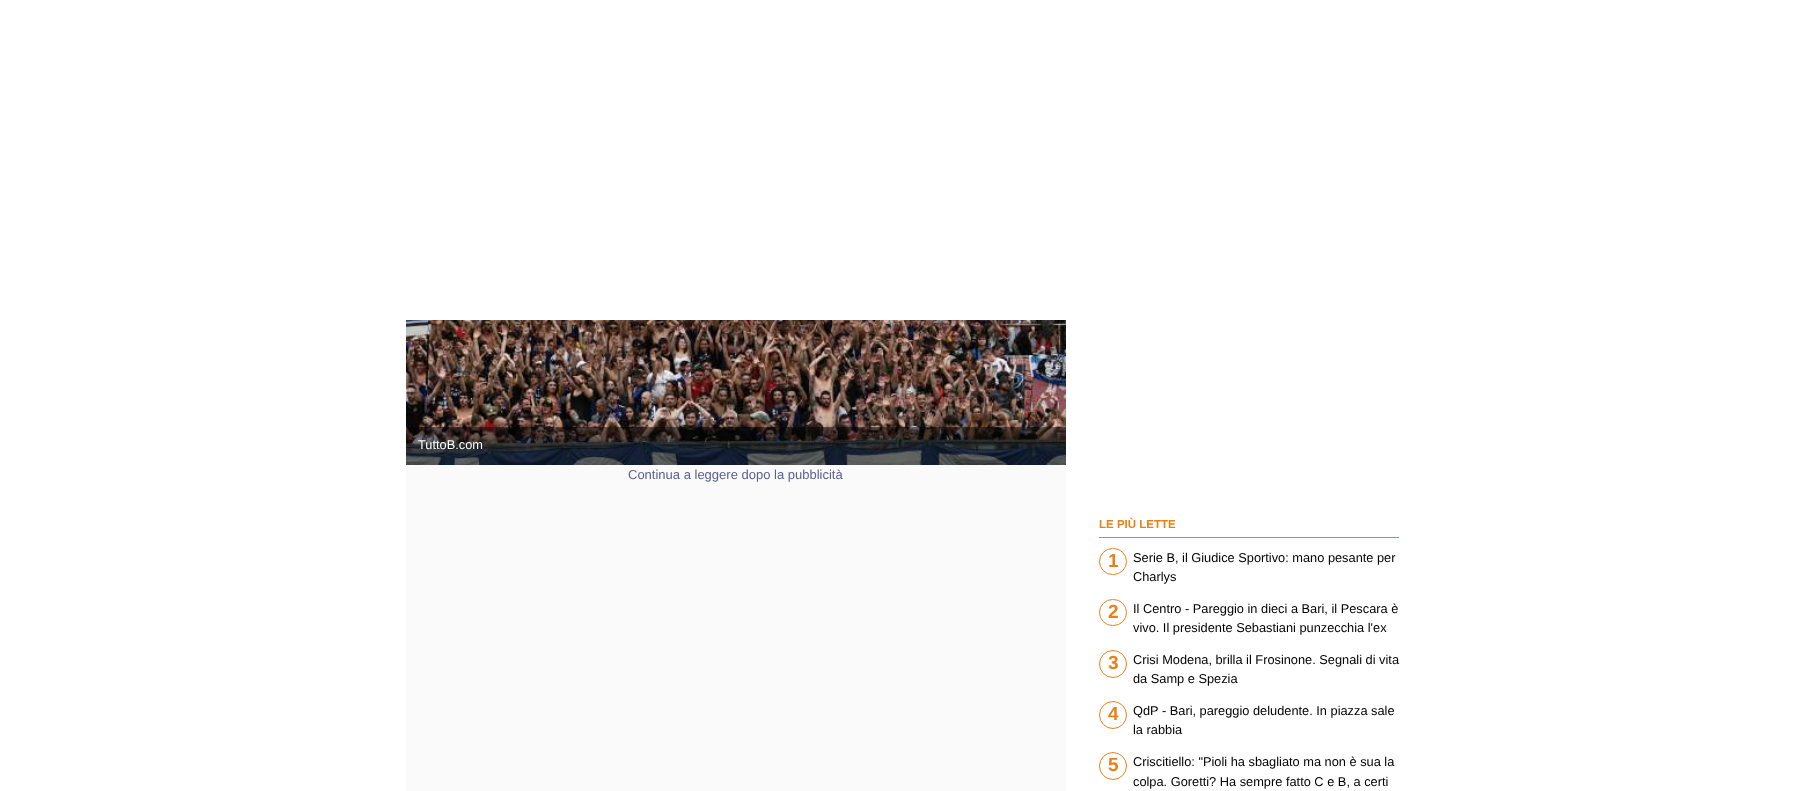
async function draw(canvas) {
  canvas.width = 1811
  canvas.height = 791
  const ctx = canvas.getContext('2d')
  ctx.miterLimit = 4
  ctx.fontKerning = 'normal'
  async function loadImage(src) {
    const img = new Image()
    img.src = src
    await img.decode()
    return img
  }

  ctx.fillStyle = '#fff'
  ctx.fillRect(0, 0, 1811, 791)
  ctx.drawImage(await loadImage('image0.png'), 406, 320, 660, 145)
  ctx.fillStyle = '#00000080'
  ctx.fillRect(406, 427, 660, 38)
  ctx.font = '12.8px Liberation Sans'
  ctx.fillStyle = '#fff'
  ctx.fillText('TuttoB.com', 418, 449)
  ctx.fillStyle = '#fafafa'
  ctx.fillRect(406, 465, 660, 326)
  ctx.font = '13px Liberation Sans'
  ctx.fillStyle = '#5b608d'
  ctx.fillText('Continua a leggere dopo la pubblicità', 628, 479)
  ctx.fillStyle = '#e9811a'
  ctx.fillRect(1099, 537, 300, 1)
  ctx.font = 'bold 11.5px Liberation Sans'
  ctx.fillText('LE PIÙ LETTE', 1099, 528)
  ctx.beginPath()
  ctx.roundRect(1099.5, 548.5, 27, 26, 13)
  ctx.strokeStyle = '#e9811a'
  ctx.stroke()
  ctx.font = 'bold 19px Liberation Sans'
  ctx.fillText('1', 1108, 567)
  ctx.font = '12.8px Liberation Sans'
  ctx.fillStyle = '#000'
  ctx.fillText('Serie B, il Giudice Sportivo: mano pesante per', 1133, 562)
  ctx.fillText('Charlys', 1133, 581)
  ctx.beginPath()
  ctx.roundRect(1099.5, 599.5, 27, 26, 13)
  ctx.stroke()
  ctx.font = 'bold 19px Liberation Sans'
  ctx.fillStyle = '#e9811a'
  ctx.fillText('2', 1108, 618)
  ctx.font = '12.8px Liberation Sans'
  ctx.fillStyle = '#000'
  ctx.fillText('Il Centro - Pareggio in dieci a Bari, il Pescara è', 1133, 613)
  ctx.fillText('vivo. Il presidente Sebastiani punzecchia l\'ex', 1133, 632)
  ctx.beginPath()
  ctx.arc(1113, 664, 13.5, 0, 2 * Math.PI)
  ctx.stroke()
  ctx.font = 'bold 19px Liberation Sans'
  ctx.fillStyle = '#e9811a'
  ctx.fillText('3', 1108, 669)
  ctx.font = '12.8px Liberation Sans'
  ctx.fillStyle = '#000'
  ctx.fillText('Crisi Modena, brilla il Frosinone. Segnali di vita', 1133, 664)
  ctx.fillText('da Samp e Spezia', 1133, 683)
  ctx.beginPath()
  ctx.arc(1113, 715, 13.5, 0, 2 * Math.PI)
  ctx.stroke()
  ctx.font = 'bold 19px Liberation Sans'
  ctx.fillStyle = '#e9811a'
  ctx.fillText('4', 1108, 720)
  ctx.font = '12.8px Liberation Sans'
  ctx.fillStyle = '#000'
  ctx.fillText('QdP - Bari, pareggio deludente. In piazza sale', 1133, 715)
  ctx.fillText('la rabbia', 1133, 734)
  ctx.beginPath()
  ctx.arc(1113, 766, 13.5, 0, 2 * Math.PI)
  ctx.stroke()
  ctx.font = 'bold 19px Liberation Sans'
  ctx.fillStyle = '#e9811a'
  ctx.fillText('5', 1108, 771)
  ctx.font = '12.8px Liberation Sans'
  ctx.fillStyle = '#000'
  ctx.fillText('Criscitiello: "Pioli ha sbagliato ma non è sua la', 1133, 766)
  ctx.fillText('colpa. Goretti? Ha sempre fatto C e B, a certi', 1133, 786)
}

draw(document.querySelector('canvas'))
